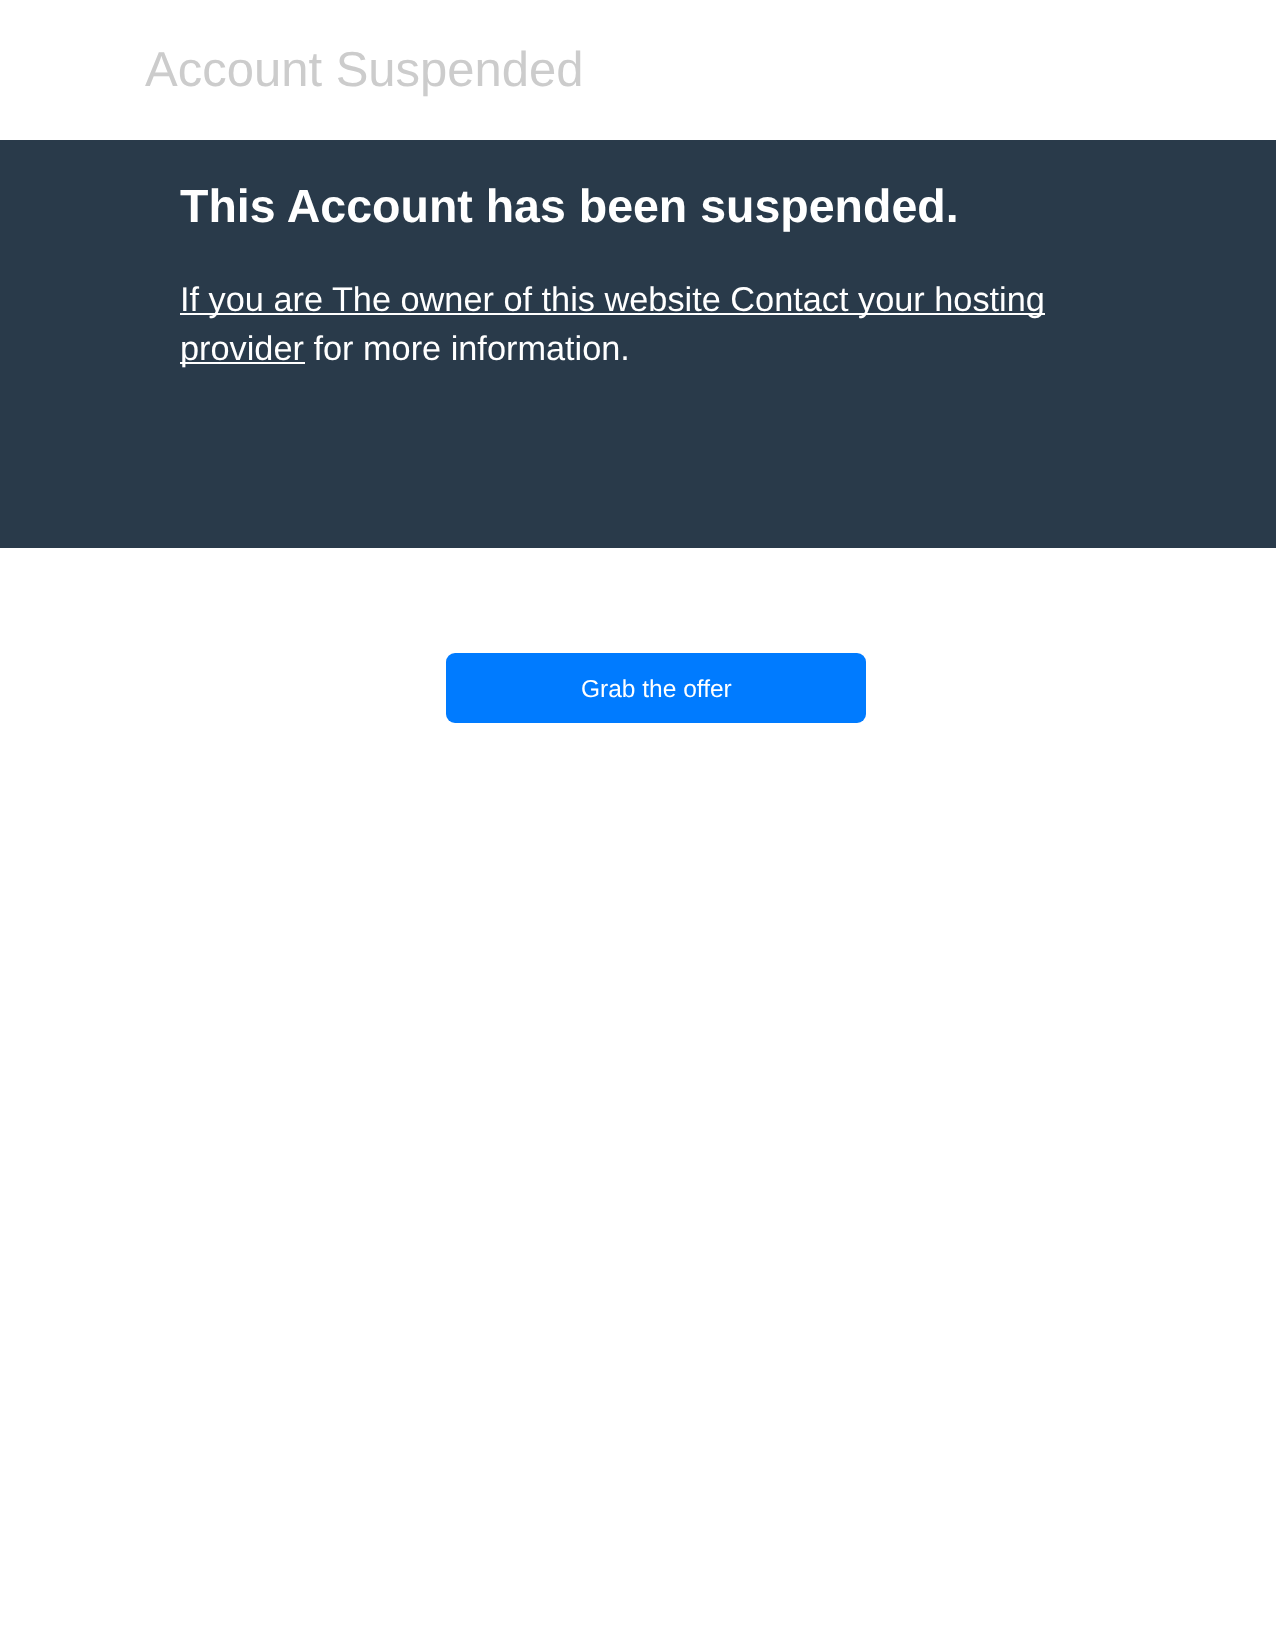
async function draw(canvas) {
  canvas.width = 1276
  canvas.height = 1649
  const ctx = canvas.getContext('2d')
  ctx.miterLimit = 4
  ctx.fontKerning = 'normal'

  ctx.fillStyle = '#fff'
  ctx.fillRect(0, 0, 1276, 1649)
  ctx.font = '49px Liberation Sans'
  ctx.fillStyle = '#ccc'
  ctx.fillText('Account Suspended', 145, 86)
  ctx.fillStyle = '#293a4a'
  ctx.fillRect(0, 140, 1276, 408)
  ctx.font = 'bold 46.5px Liberation Sans'
  ctx.fillStyle = '#fff'
  ctx.fillText('This Account has been suspended.', 180, 222)
  ctx.fillRect(180, 313, 865, 2)
  ctx.font = '34.3px Liberation Sans'
  ctx.fillText('If you are The owner of this website Contact your hosting', 180, 311)
  ctx.fillRect(180, 362, 125, 2)
  ctx.fillText('provider for more information.', 180, 360)
  ctx.fillStyle = '#007bff'
  ctx.beginPath()
  ctx.roundRect(446, 653, 420, 70, 9)
  ctx.fill()
  ctx.font = '24.5px Liberation Sans'
  ctx.fillStyle = '#fff'
  ctx.fillText('Grab the offer', 581, 697)
}

draw(document.querySelector('canvas'))
